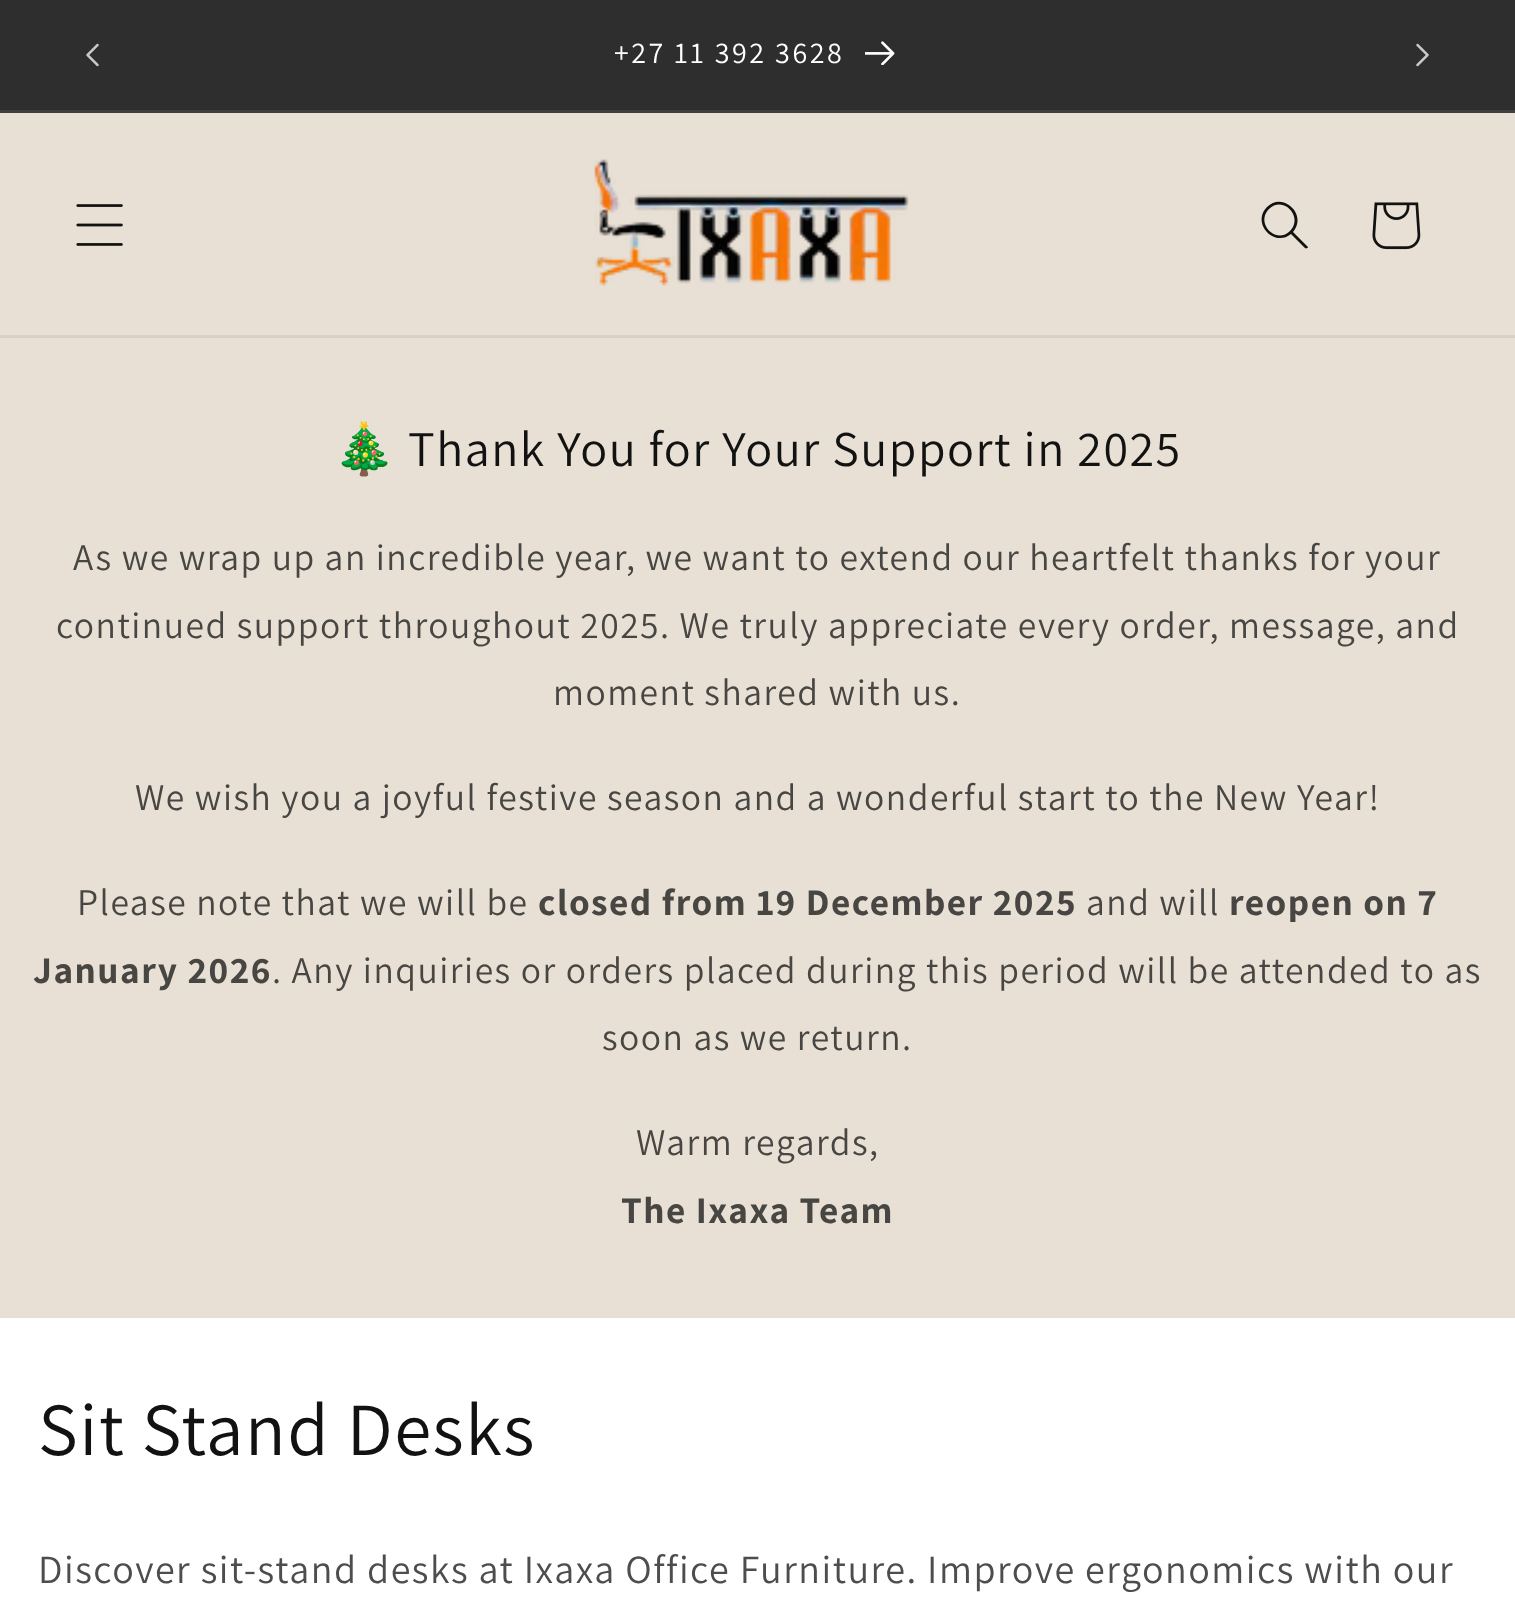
async function draw(canvas) {
  canvas.width = 1515
  canvas.height = 1611
  const ctx = canvas.getContext('2d')
  ctx.miterLimit = 4
  ctx.fontKerning = 'normal'
  async function loadImage(src) {
    const img = new Image()
    img.src = src
    await img.decode()
    return img
  }

  ctx.fillStyle = '#fff'
  ctx.fillRect(0, 0, 1515, 1611)
  ctx.fillStyle = '#2e2e2e'
  ctx.fillRect(0, 0, 1515, 110)
  ctx.fillStyle = '#3f3f3f'
  ctx.fillRect(0, 110, 1515, 3)
  ctx.drawImage(await loadImage('image0.png'), 86, 43, 13, 24)
  ctx.letterSpacing = '2.5px'
  ctx.font = '30px Assistant'
  ctx.fillStyle = '#fff'
  ctx.fillText('+27 11 392 3628', 614, 63)
  ctx.drawImage(await loadImage('image1.png'), 865, 41, 30, 24)
  ctx.drawImage(await loadImage('image2.png'), 1416, 43, 13, 24)
  ctx.fillStyle = '#e8e0d5'
  ctx.fillRect(0, 113, 1515, 222)
  ctx.fillStyle = '#d7d0c5'
  ctx.fillRect(0, 335, 1515, 3)
  ctx.drawImage(await loadImage('image3.png'), 76, 204, 47, 42)
  ctx.drawImage(await loadImage('image4.png'), 594, 159, 315, 127)
  ctx.fillStyle = '#121212'
  ctx.beginPath()
  ctx.moveTo(1290, 231)
  ctx.bezierCurveTo(1276, 245, 1255, 223, 1269, 209)
  ctx.bezierCurveTo(1283, 195, 1304, 217, 1290, 231)
  ctx.moveTo(1291, 234)
  ctx.bezierCurveTo(1274, 248, 1251, 223, 1267, 207)
  ctx.bezierCurveTo(1283, 191, 1308, 215, 1293, 232)
  ctx.lineTo(1308, 247)
  ctx.bezierCurveTo(1308, 248, 1306, 249, 1305, 248)
  ctx.closePath()
  ctx.fill('evenodd')
  ctx.drawImage(await loadImage('image5.png'), 1372, 202, 49, 48)
  ctx.fillStyle = '#e8e0d5'
  ctx.fillRect(0, 338, 1515, 980)
  ctx.letterSpacing = '1.5px'
  ctx.font = '50px Noto Color Emoji'
  ctx.fillStyle = '#121212'
  ctx.fillText('🎄', 333, 466)
  ctx.font = '50px Assistant'
  ctx.fillText('Thank You for Your Support in 2025', 408, 466)
  ctx.font = '37.5px Assistant'
  ctx.fillStyle = '#484643'
  ctx.fillText('As we wrap up an incredible year, we want to extend our heartfelt thanks for your', 73, 570)
  ctx.fillText('continued support throughout 2025. We truly appreciate every order, message, and', 56, 638)
  ctx.fillText('moment shared with us.', 553, 705)
  ctx.fillText('We wish you a joyful festive season and a wonderful start to the New Year!', 135, 810)
  ctx.fillText('Please note that we will be', 77, 915)
  ctx.font = 'bold 37.5px Assistant'
  ctx.fillText('closed from 19 December 2025', 538, 915)
  ctx.font = '37.5px Assistant'
  ctx.fillText('and will', 1086, 915)
  ctx.font = 'bold 37.5px Assistant'
  ctx.fillText('reopen on 7', 1229, 915)
  ctx.fillText('January 2026', 33, 983)
  ctx.font = '37.5px Assistant'
  ctx.fillText('. Any inquiries or orders placed during this period will be attended to as', 272, 983)
  ctx.fillText('soon as we return.', 602, 1050)
  ctx.fillText('Warm regards,', 636, 1155)
  ctx.font = 'bold 37.5px Assistant'
  ctx.fillText('The Ixaxa Team', 621, 1223)
  ctx.font = '75px Assistant'
  ctx.fillStyle = '#121212'
  ctx.fillText('Sit Stand Desks', 38, 1455)
  ctx.font = '40px Assistant'
  ctx.fillStyle = '#4d4d4d'
  ctx.fillText('Discover sit-stand desks at Ixaxa Office Furniture. Improve ergonomics with our', 38, 1583)
}

draw(document.querySelector('canvas'))
